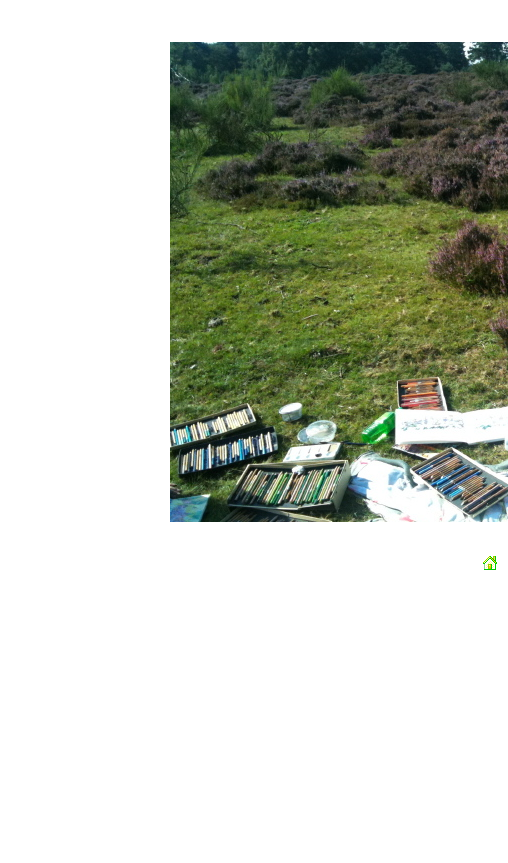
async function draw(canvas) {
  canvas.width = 508
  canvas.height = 863
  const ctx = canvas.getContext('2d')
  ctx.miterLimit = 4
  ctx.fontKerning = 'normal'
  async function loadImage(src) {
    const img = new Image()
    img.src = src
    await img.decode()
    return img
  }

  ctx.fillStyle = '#fff'
  ctx.fillRect(0, 0, 508, 863)
  ctx.drawImage(await loadImage('image0.png'), 170, 42, 338, 480)
  ctx.drawImage(await loadImage('image1.png'), 483, 556, 14, 14)
}

draw(document.querySelector('canvas'))
